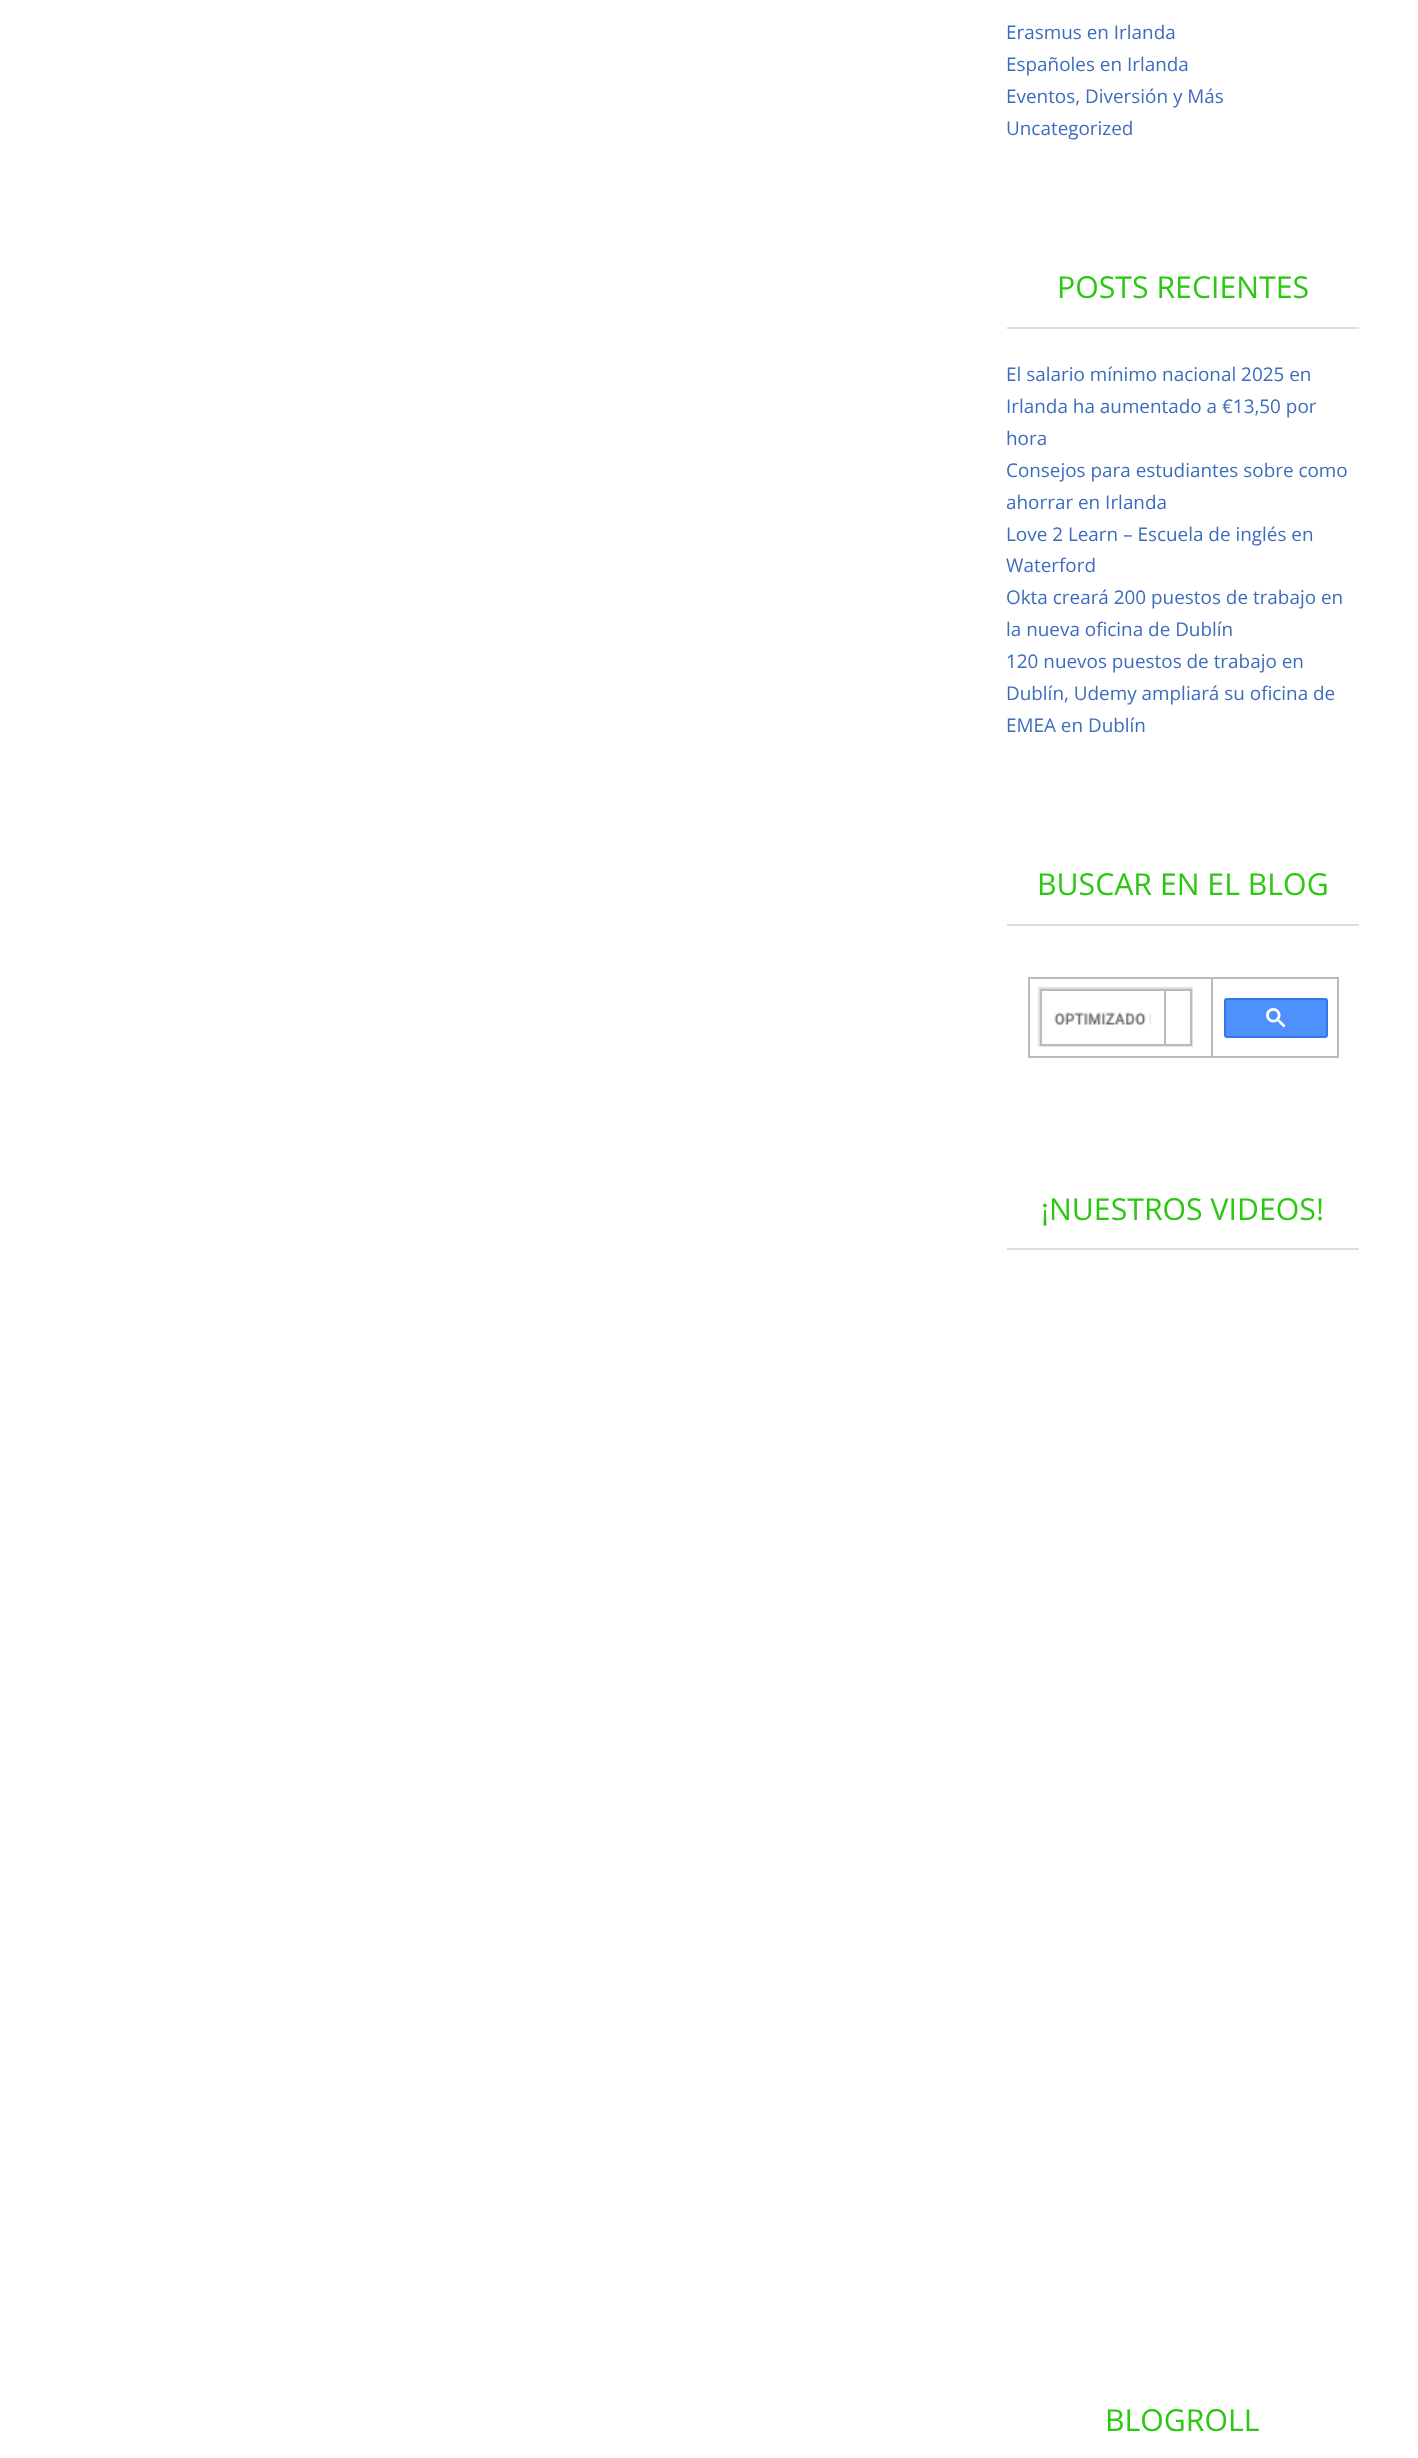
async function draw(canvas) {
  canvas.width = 1418
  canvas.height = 2458
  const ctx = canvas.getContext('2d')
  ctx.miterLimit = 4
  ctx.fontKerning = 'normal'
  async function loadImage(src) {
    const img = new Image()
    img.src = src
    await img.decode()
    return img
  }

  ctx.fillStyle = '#fff'
  ctx.fillRect(0, 0, 1418, 2458)
  ctx.font = '18.9px Open Sans'
  ctx.fillStyle = '#3d6cbf'
  ctx.fillText('Erasmus en Irlanda', 1006, 39)
  ctx.fillText('Españoles en Irlanda', 1006, 71)
  ctx.fillText('Eventos, Diversión y Más', 1006, 103)
  ctx.fillText('Uncategorized', 1006, 135)
  ctx.fillStyle = '#ddd'
  ctx.fillRect(1007, 327, 352, 2)
  ctx.font = '30.25px Open Sans'
  ctx.fillStyle = '#2cc713'
  ctx.fillText('POSTS RECIENTES', 1057, 298)
  ctx.font = '18.9px Open Sans'
  ctx.fillStyle = '#3d6cbf'
  ctx.fillText('El salario mínimo nacional 2025 en', 1006, 381)
  ctx.fillText('Irlanda ha aumentado a €13,50 por', 1006, 413)
  ctx.fillText('hora', 1006, 445)
  ctx.fillText('Consejos para estudiantes sobre como', 1006, 477)
  ctx.fillText('ahorrar en Irlanda', 1006, 509)
  ctx.fillText('Love 2 Learn – Escuela de inglés en', 1006, 541)
  ctx.fillText('Waterford', 1006, 572)
  ctx.fillText('Okta creará 200 puestos de trabajo en', 1006, 604)
  ctx.fillText('la nueva oficina de Dublín', 1006, 636)
  ctx.fillText('120 nuevos puestos de trabajo en', 1006, 668)
  ctx.fillText('Dublín, Udemy ampliará su oficina de', 1006, 700)
  ctx.fillText('EMEA en Dublín', 1006, 732)
  ctx.fillStyle = '#ddd'
  ctx.fillRect(1007, 924, 352, 2)
  ctx.font = '30.25px Open Sans'
  ctx.fillStyle = '#2cc713'
  ctx.fillText('BUSCAR EN EL BLOG', 1037, 895)
  ctx.fillStyle = '#bbb'
  ctx.fillRect(1211, 977, 127, 2)
  ctx.fillRect(1337, 977, 2, 81)
  ctx.fillRect(1211, 1056, 127, 2)
  ctx.fillRect(1211, 977, 2, 81)
  ctx.fillRect(1028, 977, 184, 2)
  ctx.fillRect(1028, 1056, 184, 2)
  ctx.fillRect(1028, 977, 2, 81)
  ctx.strokeStyle = '#dfe1e5'
  ctx.lineWidth = 2
  ctx.strokeRect(1039, 988, 153, 58)
  ctx.fillRect(1164, 989, 27, 2)
  ctx.fillRect(1190, 989, 2, 57)
  ctx.fillRect(1164, 1044, 27, 2)
  ctx.fillRect(1164, 989, 2, 57)
  ctx.fillRect(1040, 989, 126, 2)
  ctx.fillRect(1040, 1044, 126, 2)
  ctx.fillRect(1040, 989, 2, 57)
  ctx.drawImage(await loadImage('image0.png'), 1054, 1012, 97, 13)
  ctx.fillStyle = '#4d90fe'
  ctx.beginPath()
  ctx.roundRect(1225, 999, 102, 38, 2)
  ctx.fill()
  ctx.strokeStyle = '#3079ed'
  ctx.stroke()
  ctx.drawImage(await loadImage('image1.png'), 1266, 1008, 20, 20)
  ctx.fillStyle = '#ddd'
  ctx.fillRect(1007, 1248, 352, 2)
  ctx.fillStyle = '#2cc713'
  ctx.fillText('¡NUESTROS VIDEOS!', 1041, 1220)
  ctx.fillText('BLOGROLL', 1105, 2431)
}

draw(document.querySelector('canvas'))
